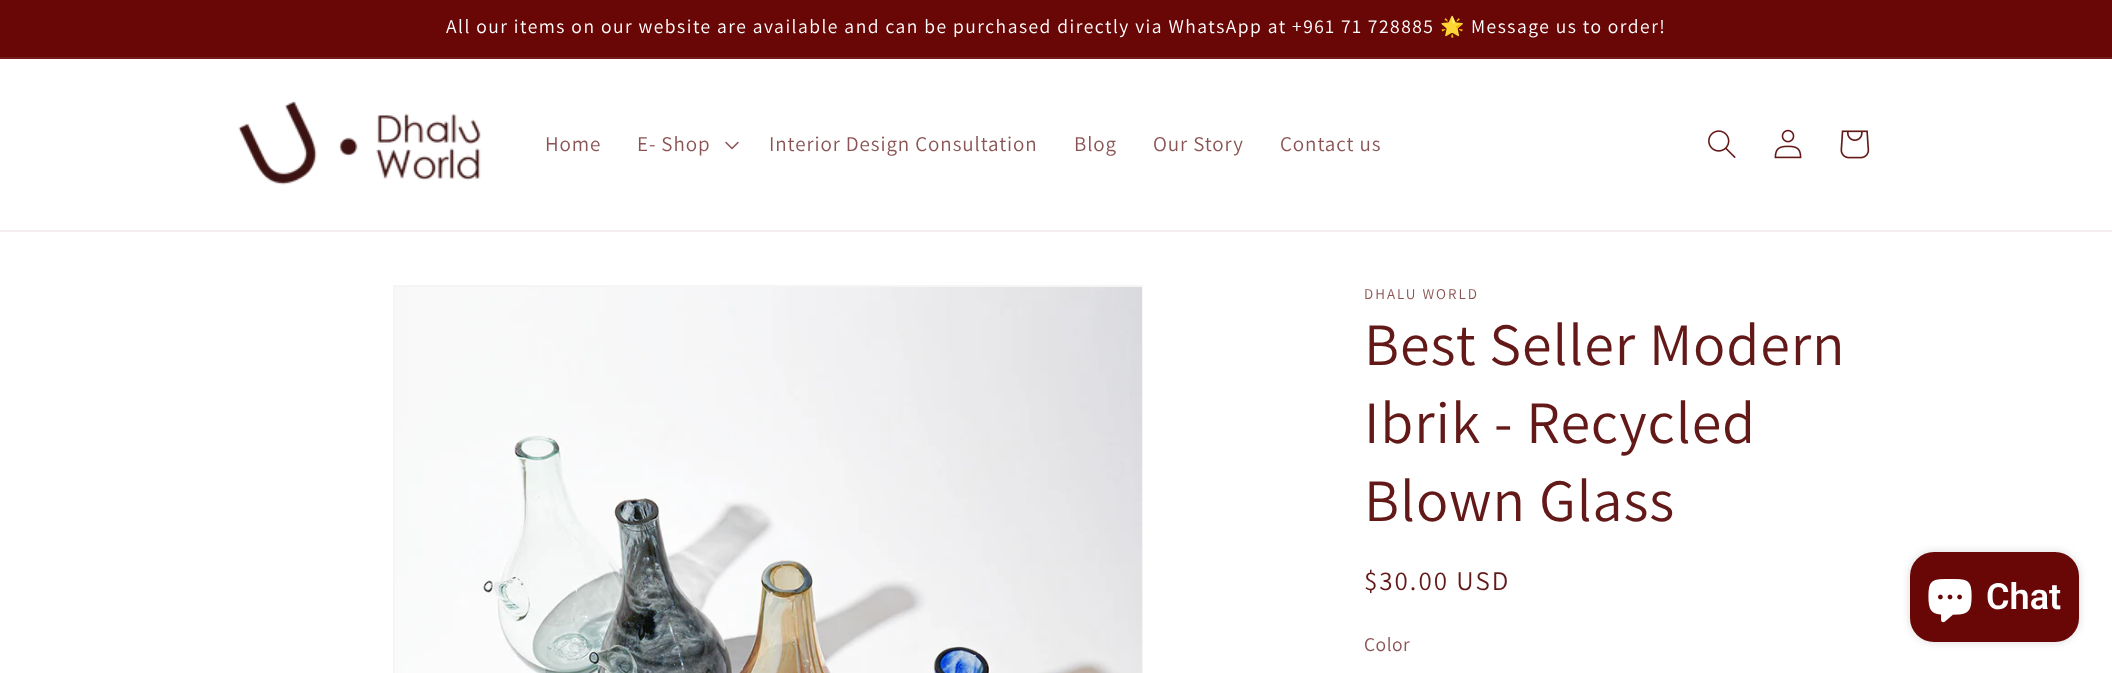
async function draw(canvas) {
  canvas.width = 2112
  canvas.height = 673
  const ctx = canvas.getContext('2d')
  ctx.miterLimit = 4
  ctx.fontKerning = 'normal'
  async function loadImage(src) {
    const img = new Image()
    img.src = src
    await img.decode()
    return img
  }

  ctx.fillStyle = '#fff'
  ctx.fillRect(0, 0, 2112, 673)
  ctx.fillStyle = '#690707'
  ctx.fillRect(0, 0, 2112, 57)
  ctx.fillStyle = '#751b1b'
  ctx.fillRect(0, 57, 2112, 2)
  ctx.letterSpacing = '1.5px'
  ctx.font = '19.5px Assistant'
  ctx.fillStyle = '#fff'
  ctx.fillText('All our items on our website are available and can be purchased directly via WhatsApp at +961 71 728885', 446, 33)
  ctx.font = '19.5px Noto Color Emoji'
  ctx.fillText('🌟', 1440, 33)
  ctx.font = '19.5px Assistant'
  ctx.fillText('Message us to order!', 1471, 33)
  ctx.fillStyle = '#f3eded'
  ctx.fillRect(0, 230, 2112, 2)
  ctx.drawImage(await loadImage('image0.png'), 238, 101, 243, 84)
  ctx.letterSpacing = '0.9px'
  ctx.font = '21px Assistant'
  ctx.fillStyle = '#8b5353'
  ctx.fillText('Home', 545, 151)
  ctx.fillText('E- Shop', 637, 151)
  ctx.drawImage(await loadImage('image1.png'), 725, 141, 14, 9)
  ctx.fillText('Interior Design Consultation', 769, 151)
  ctx.fillText('Blog', 1074, 151)
  ctx.fillText('Our Story', 1153, 151)
  ctx.fillText('Contact us', 1280, 151)
  ctx.drawImage(await loadImage('image2.png'), 1708, 130, 28, 28)
  ctx.drawImage(await loadImage('image3.png'), 1774, 129, 28, 30)
  ctx.drawImage(await loadImage('image4.png'), 1840, 130, 30, 29)
  ctx.strokeStyle = '#f7f4f4'
  ctx.lineWidth = 2
  ctx.strokeRect(394, 286, 748, 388)
  ctx.drawImage(await loadImage('image5.png'), 395, 287, 747, 386)
  ctx.letterSpacing = '2px'
  ctx.font = '15px Assistant'
  ctx.fillText('DHALU WORLD', 1364, 299)
  ctx.letterSpacing = '0.9px'
  ctx.font = '60px Assistant'
  ctx.fillStyle = '#641919'
  ctx.fillText('Best Seller Modern', 1364, 365)
  ctx.fillText('Ibrik - Recycled', 1364, 443)
  ctx.fillText('Blown Glass', 1364, 521)
  ctx.letterSpacing = '2px'
  ctx.font = '27px Assistant'
  ctx.fillText('$30.00 USD', 1364, 590)
  ctx.letterSpacing = '0.5px'
  ctx.font = '19.5px Assistant'
  ctx.fillStyle = '#8b5353'
  ctx.fillText('Color', 1364, 651)
  ctx.fillStyle = '#00000026'
  ctx.filter = 'blur(4px)'
  ctx.beginPath()
  ctx.roundRect(1910, 552, 169, 90, 24)
  ctx.fill()
  ctx.filter = 'none'
  ctx.fillStyle = '#690707'
  ctx.beginPath()
  ctx.roundRect(1910, 552, 169, 90, 24)
  ctx.fill()
  ctx.drawImage(await loadImage('image6.png'), 1928, 579, 44, 44)
  ctx.letterSpacing = '0px'
  ctx.font = '600 36px Roboto'
  ctx.fillStyle = '#fff'
  ctx.fillText('Chat', 1986, 609)
}

draw(document.querySelector('canvas'))
